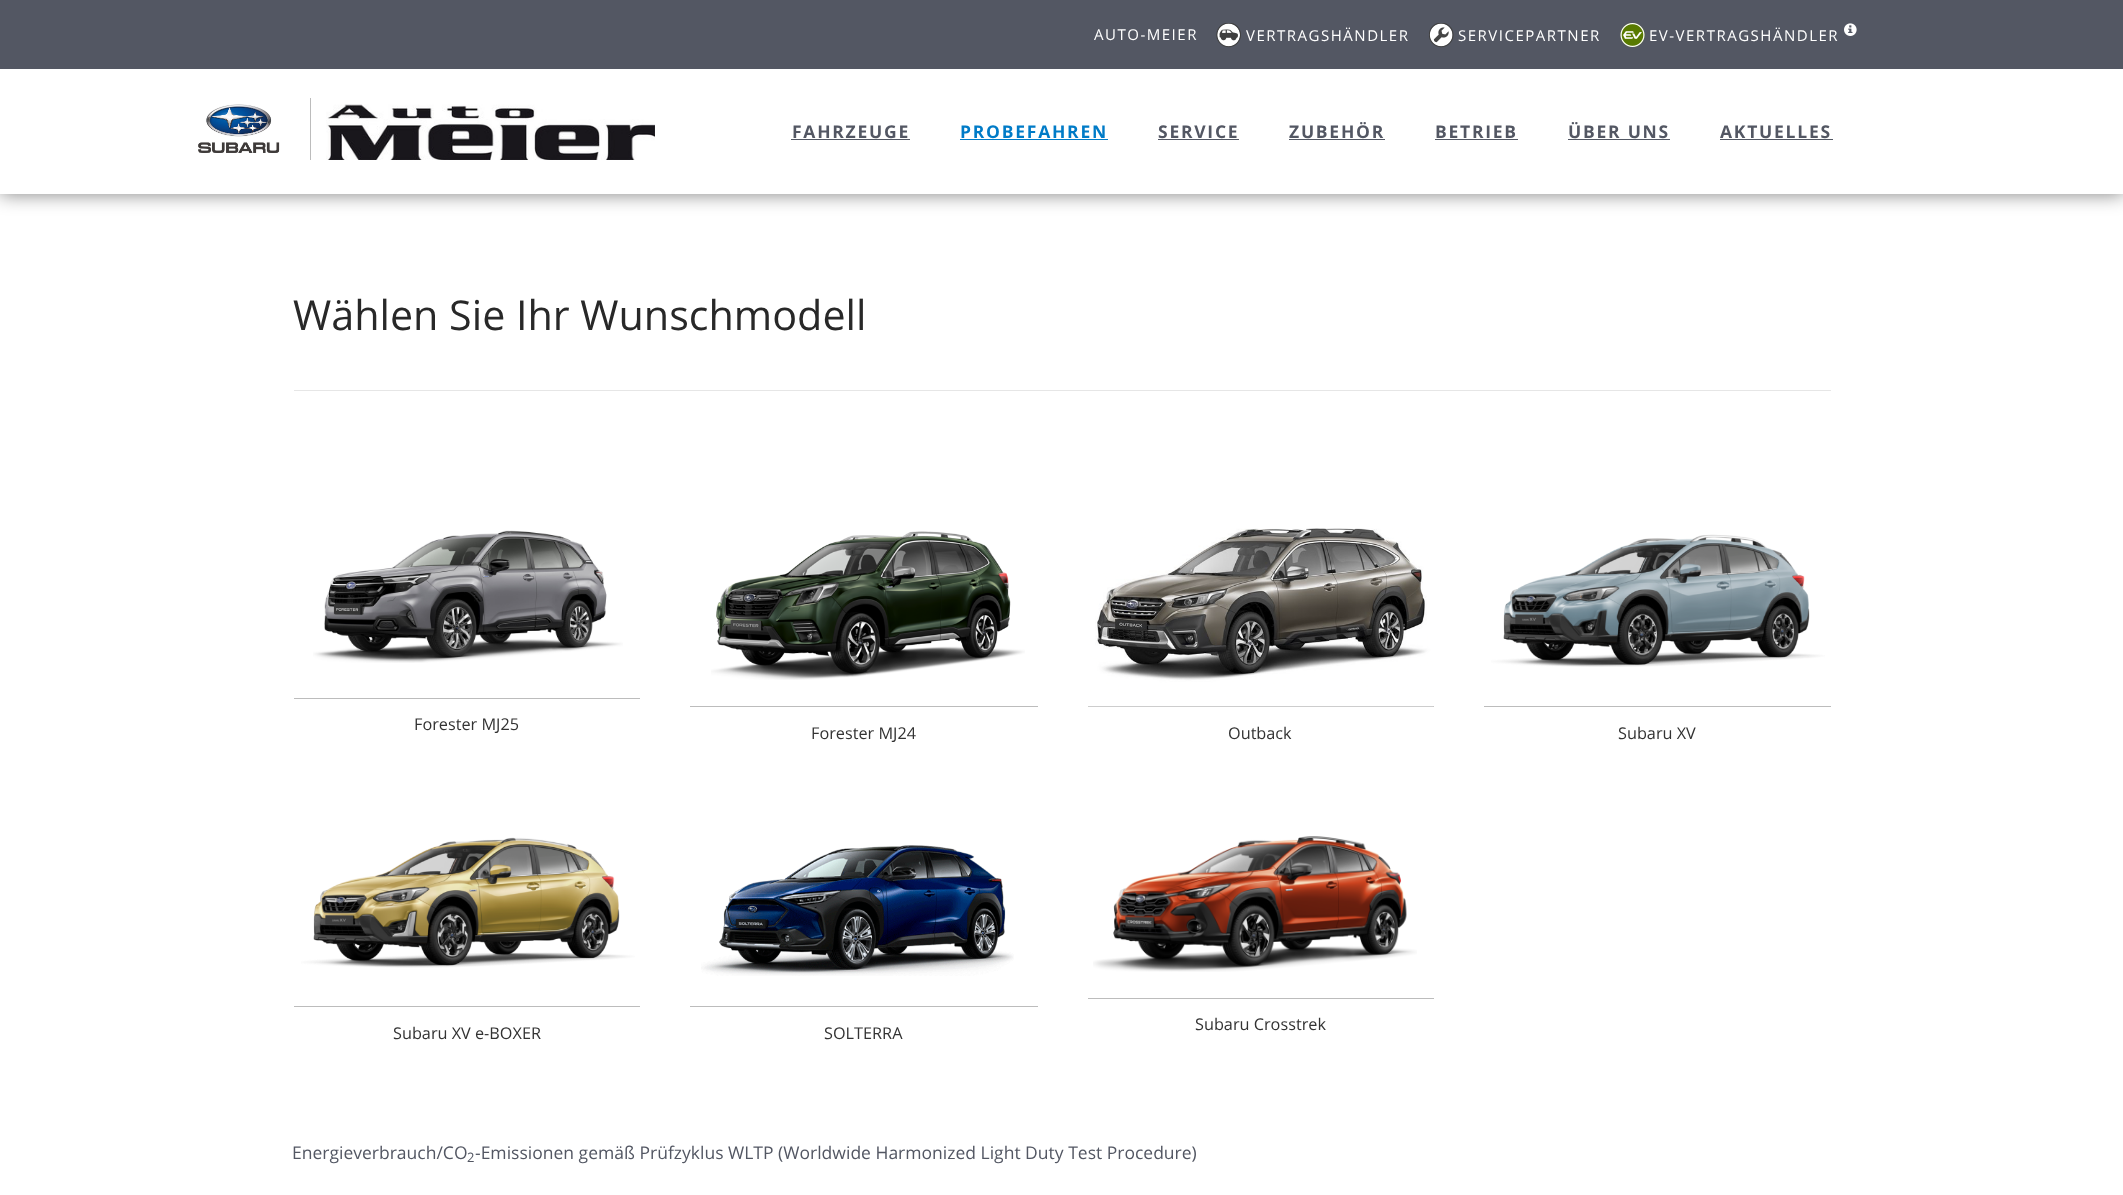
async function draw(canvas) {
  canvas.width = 2123
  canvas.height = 1195
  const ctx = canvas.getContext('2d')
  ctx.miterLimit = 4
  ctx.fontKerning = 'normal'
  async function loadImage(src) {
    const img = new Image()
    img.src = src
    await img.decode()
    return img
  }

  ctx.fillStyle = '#fff'
  ctx.fillRect(0, 0, 2123, 1195)
  ctx.fillStyle = '#00000080'
  ctx.filter = 'blur(9.5px)'
  ctx.beginPath()
  ctx.rect(0, 0, 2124, 194)
  ctx.fill()
  ctx.filter = 'none'
  ctx.fillStyle = '#fff'
  ctx.fillRect(0, 69, 2123, 125)
  ctx.fillStyle = '#535763'
  ctx.fillRect(0, 0, 2123, 69)
  ctx.letterSpacing = '1.5px'
  ctx.font = '15px Open Sans'
  ctx.fillStyle = '#fff'
  ctx.fillText('AUTO-MEIER', 1094, 40)
  ctx.drawImage(await loadImage('image0.png'), 1216, 23, 25, 25)
  ctx.fillText('VERTRAGSHÄNDLER', 1246, 41)
  ctx.drawImage(await loadImage('image1.png'), 1429, 23, 25, 25)
  ctx.fillText('SERVICEPARTNER', 1458, 41)
  ctx.drawImage(await loadImage('image2.png'), 1620, 23, 25, 24)
  ctx.fillText('EV-VERTRAGSHÄNDLER', 1649, 41)
  ctx.drawImage(await loadImage('image3.png'), 1844, 23, 13, 13)
  ctx.drawImage(await loadImage('image4.png'), 198, 104, 82, 49)
  ctx.fillStyle = '#bcbcbc'
  ctx.fillRect(310, 98, 1, 62)
  ctx.drawImage(await loadImage('image5.png'), 326, 104, 329, 56)
  ctx.letterSpacing = '1.75px'
  ctx.font = 'bold 17.5px Open Sans'
  ctx.fillStyle = '#535763'
  ctx.fillText('FAHRZEUGE', 792, 138)
  ctx.fillStyle = '#525763'
  ctx.fillRect(791, 139, 119, 1)
  ctx.fillStyle = '#007bc7'
  ctx.fillText('PROBEFAHREN', 960, 138)
  ctx.fillRect(960, 139, 148, 1)
  ctx.fillStyle = '#535763'
  ctx.fillText('SERVICE', 1158, 138)
  ctx.fillStyle = '#525763'
  ctx.fillRect(1158, 139, 81, 1)
  ctx.fillStyle = '#535763'
  ctx.fillText('ZUBEHÖR', 1289, 138)
  ctx.fillStyle = '#525763'
  ctx.fillRect(1289, 139, 96, 1)
  ctx.fillStyle = '#535763'
  ctx.fillText('BETRIEB', 1435, 138)
  ctx.fillStyle = '#525763'
  ctx.fillRect(1435, 139, 83, 1)
  ctx.fillStyle = '#535763'
  ctx.fillText('ÜBER UNS', 1568, 138)
  ctx.fillStyle = '#525763'
  ctx.fillRect(1568, 139, 102, 1)
  ctx.fillStyle = '#535763'
  ctx.fillText('AKTUELLES', 1720, 138)
  ctx.fillStyle = '#525763'
  ctx.fillRect(1720, 139, 113, 1)
  ctx.letterSpacing = '0px'
  ctx.font = '41.25px Open Sans'
  ctx.fillStyle = '#282828'
  ctx.fillText('Wählen Sie Ihr Wunschmodell', 293, 330)
  ctx.fillStyle = '#e6e6e6'
  ctx.fillRect(294, 390, 1537, 1)
  ctx.fillStyle = '#bcbcbc'
  ctx.fillRect(294, 698, 346, 1)
  ctx.drawImage(await loadImage('image6.png'), 313, 530, 310, 133)
  ctx.font = '16.25px Open Sans'
  ctx.fillStyle = '#333'
  ctx.fillText('Forester MJ25', 414, 730)
  ctx.fillStyle = '#bcbcbc'
  ctx.fillRect(690, 706, 348, 1)
  ctx.drawImage(await loadImage('image7.png'), 711, 531, 314, 149)
  ctx.fillStyle = '#333'
  ctx.fillText('Forester MJ24', 811, 739)
  ctx.fillStyle = '#bcbcbc'
  ctx.fillRect(1088, 706, 346, 1)
  ctx.drawImage(await loadImage('image8.png'), 1088, 528, 346, 179)
  ctx.fillStyle = '#333'
  ctx.fillText('Outback', 1228, 739)
  ctx.fillStyle = '#bcbcbc'
  ctx.fillRect(1484, 706, 347, 1)
  ctx.drawImage(await loadImage('image9.png'), 1491, 534, 334, 133)
  ctx.fillStyle = '#333'
  ctx.fillText('Subaru XV', 1618, 739)
  ctx.fillStyle = '#bcbcbc'
  ctx.fillRect(1088, 998, 346, 1)
  ctx.drawImage(await loadImage('image10.png'), 1093, 836, 324, 136)
  ctx.fillStyle = '#333'
  ctx.fillText('Subaru Crosstrek', 1195, 1030)
  ctx.fillStyle = '#bcbcbc'
  ctx.fillRect(294, 1006, 346, 1)
  ctx.drawImage(await loadImage('image11.png'), 301, 837, 334, 131)
  ctx.fillStyle = '#333'
  ctx.fillText('Subaru XV e-BOXER', 393, 1039)
  ctx.fillStyle = '#bcbcbc'
  ctx.fillRect(690, 1006, 348, 1)
  ctx.drawImage(await loadImage('image12.png'), 701, 845, 313, 131)
  ctx.fillStyle = '#333'
  ctx.fillText('SOLTERRA', 824, 1039)
  ctx.font = '17.5px Open Sans'
  ctx.fillStyle = '#535763'
  ctx.fillText('Energieverbrauch/CO', 292, 1159)
  ctx.font = '13px Open Sans'
  ctx.fillText('2', 467, 1162)
  ctx.font = '17.5px Open Sans'
  ctx.fillText('-Emissionen gemäß Prüfzyklus WLTP (Worldwide Harmonized Light Duty Test Procedure)', 475, 1159)
}

draw(document.querySelector('canvas'))
